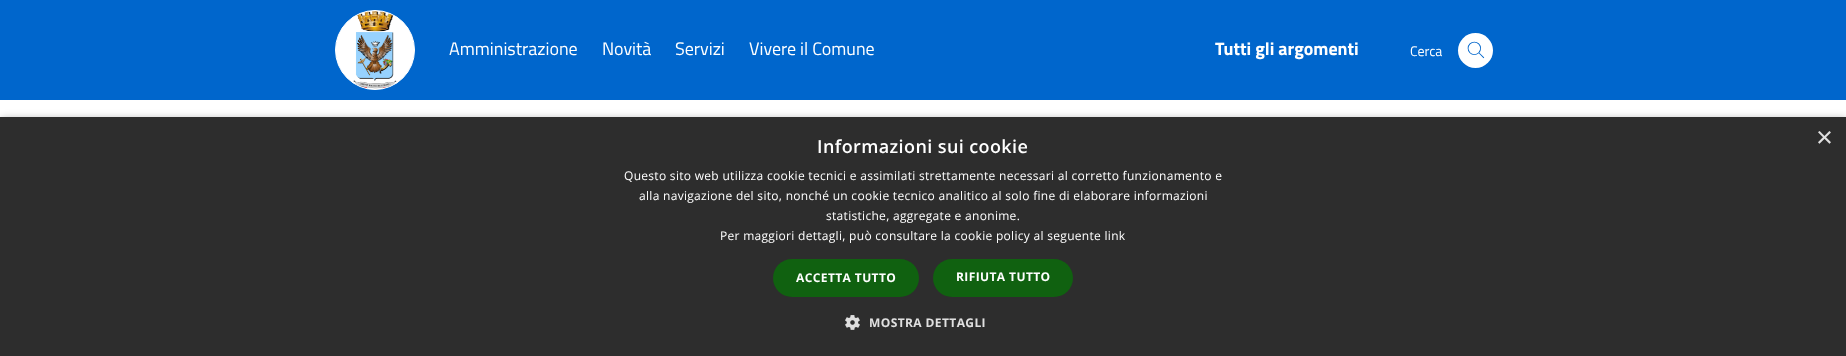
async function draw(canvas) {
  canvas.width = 1846
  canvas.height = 356
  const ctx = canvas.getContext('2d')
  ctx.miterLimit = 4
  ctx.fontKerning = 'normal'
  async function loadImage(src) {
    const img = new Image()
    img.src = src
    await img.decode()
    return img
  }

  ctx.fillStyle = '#fff'
  ctx.fillRect(0, 0, 1846, 356)
  ctx.fillStyle = '#06c'
  ctx.fillRect(0, 0, 1846, 100)
  ctx.fillStyle = '#fff'
  ctx.beginPath()
  ctx.arc(375, 50, 39.5, 0, 2 * Math.PI)
  ctx.fill()
  ctx.strokeStyle = '#fff'
  ctx.stroke()
  ctx.drawImage(await loadImage('image0.png'), 353, 11, 44, 78)
  ctx.font = '18px Titillium Web'
  ctx.fillText('Amministrazione', 449, 55)
  ctx.fillText('Novità', 602, 55)
  ctx.fillText('Servizi', 675, 55)
  ctx.fillText('Vivere il Comune', 749, 55)
  ctx.font = 'bold 18px Titillium Web'
  ctx.fillText('Tutti gli argomenti', 1215, 55)
  ctx.font = '14px Titillium Web'
  ctx.fillText('Cerca', 1410, 56)
  ctx.beginPath()
  ctx.arc(1475.5, 50.5, 17.5, 0, 2 * Math.PI)
  ctx.fill()
  ctx.drawImage(await loadImage('image1.png'), 1467, 41, 18, 18)
  ctx.fillStyle = '#00000059'
  ctx.filter = 'blur(4px)'
  ctx.beginPath()
  ctx.rect(1, 119, 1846, 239)
  ctx.fill()
  ctx.filter = 'none'
  ctx.fillStyle = '#2d2d2d'
  ctx.fillRect(0, 117, 1846, 239)
  ctx.font = '29px Liberation Sans'
  ctx.fillStyle = '#e0e0e0'
  ctx.fillText('×', 1816, 147)
  ctx.letterSpacing = '0.4px'
  ctx.font = '600 18px Open Sans'
  ctx.fillStyle = '#fff'
  ctx.fillText('Informazioni sui cookie', 817, 153)
  ctx.letterSpacing = '0.3px'
  ctx.font = '12px Open Sans'
  ctx.fillText('Questo sito web utilizza cookie tecnici e assimilati strettamente necessari al corretto funzionamento e', 624, 180)
  ctx.fillText('alla navigazione del sito, nonché un cookie tecnico analitico al solo fine di elaborare informazioni', 639, 200)
  ctx.fillText('statistiche, aggregate e anonime.', 826, 220)
  ctx.fillText('Per maggiori dettagli, può consultare la cookie policy al seguente link', 720, 240)
  ctx.fillStyle = '#106110'
  ctx.beginPath()
  ctx.roundRect(773, 259, 146, 38, 19)
  ctx.fill()
  ctx.letterSpacing = '0.4px'
  ctx.font = 'bold 12px Open Sans'
  ctx.fillStyle = '#fff'
  ctx.fillText('ACCETTA TUTTO', 796, 282)
  ctx.fillStyle = '#106110'
  ctx.beginPath()
  ctx.roundRect(933, 259, 140, 38, 19)
  ctx.fill()
  ctx.fillStyle = '#fff'
  ctx.fillText('RIFIUTA TUTTO', 956, 281)
  ctx.drawImage(await loadImage('image2.png'), 845, 315, 15, 15)
  ctx.fillStyle = '#e0e0e0'
  ctx.fillText('MOSTRA DETTAGLI', 869, 327)
}

draw(document.querySelector('canvas'))
